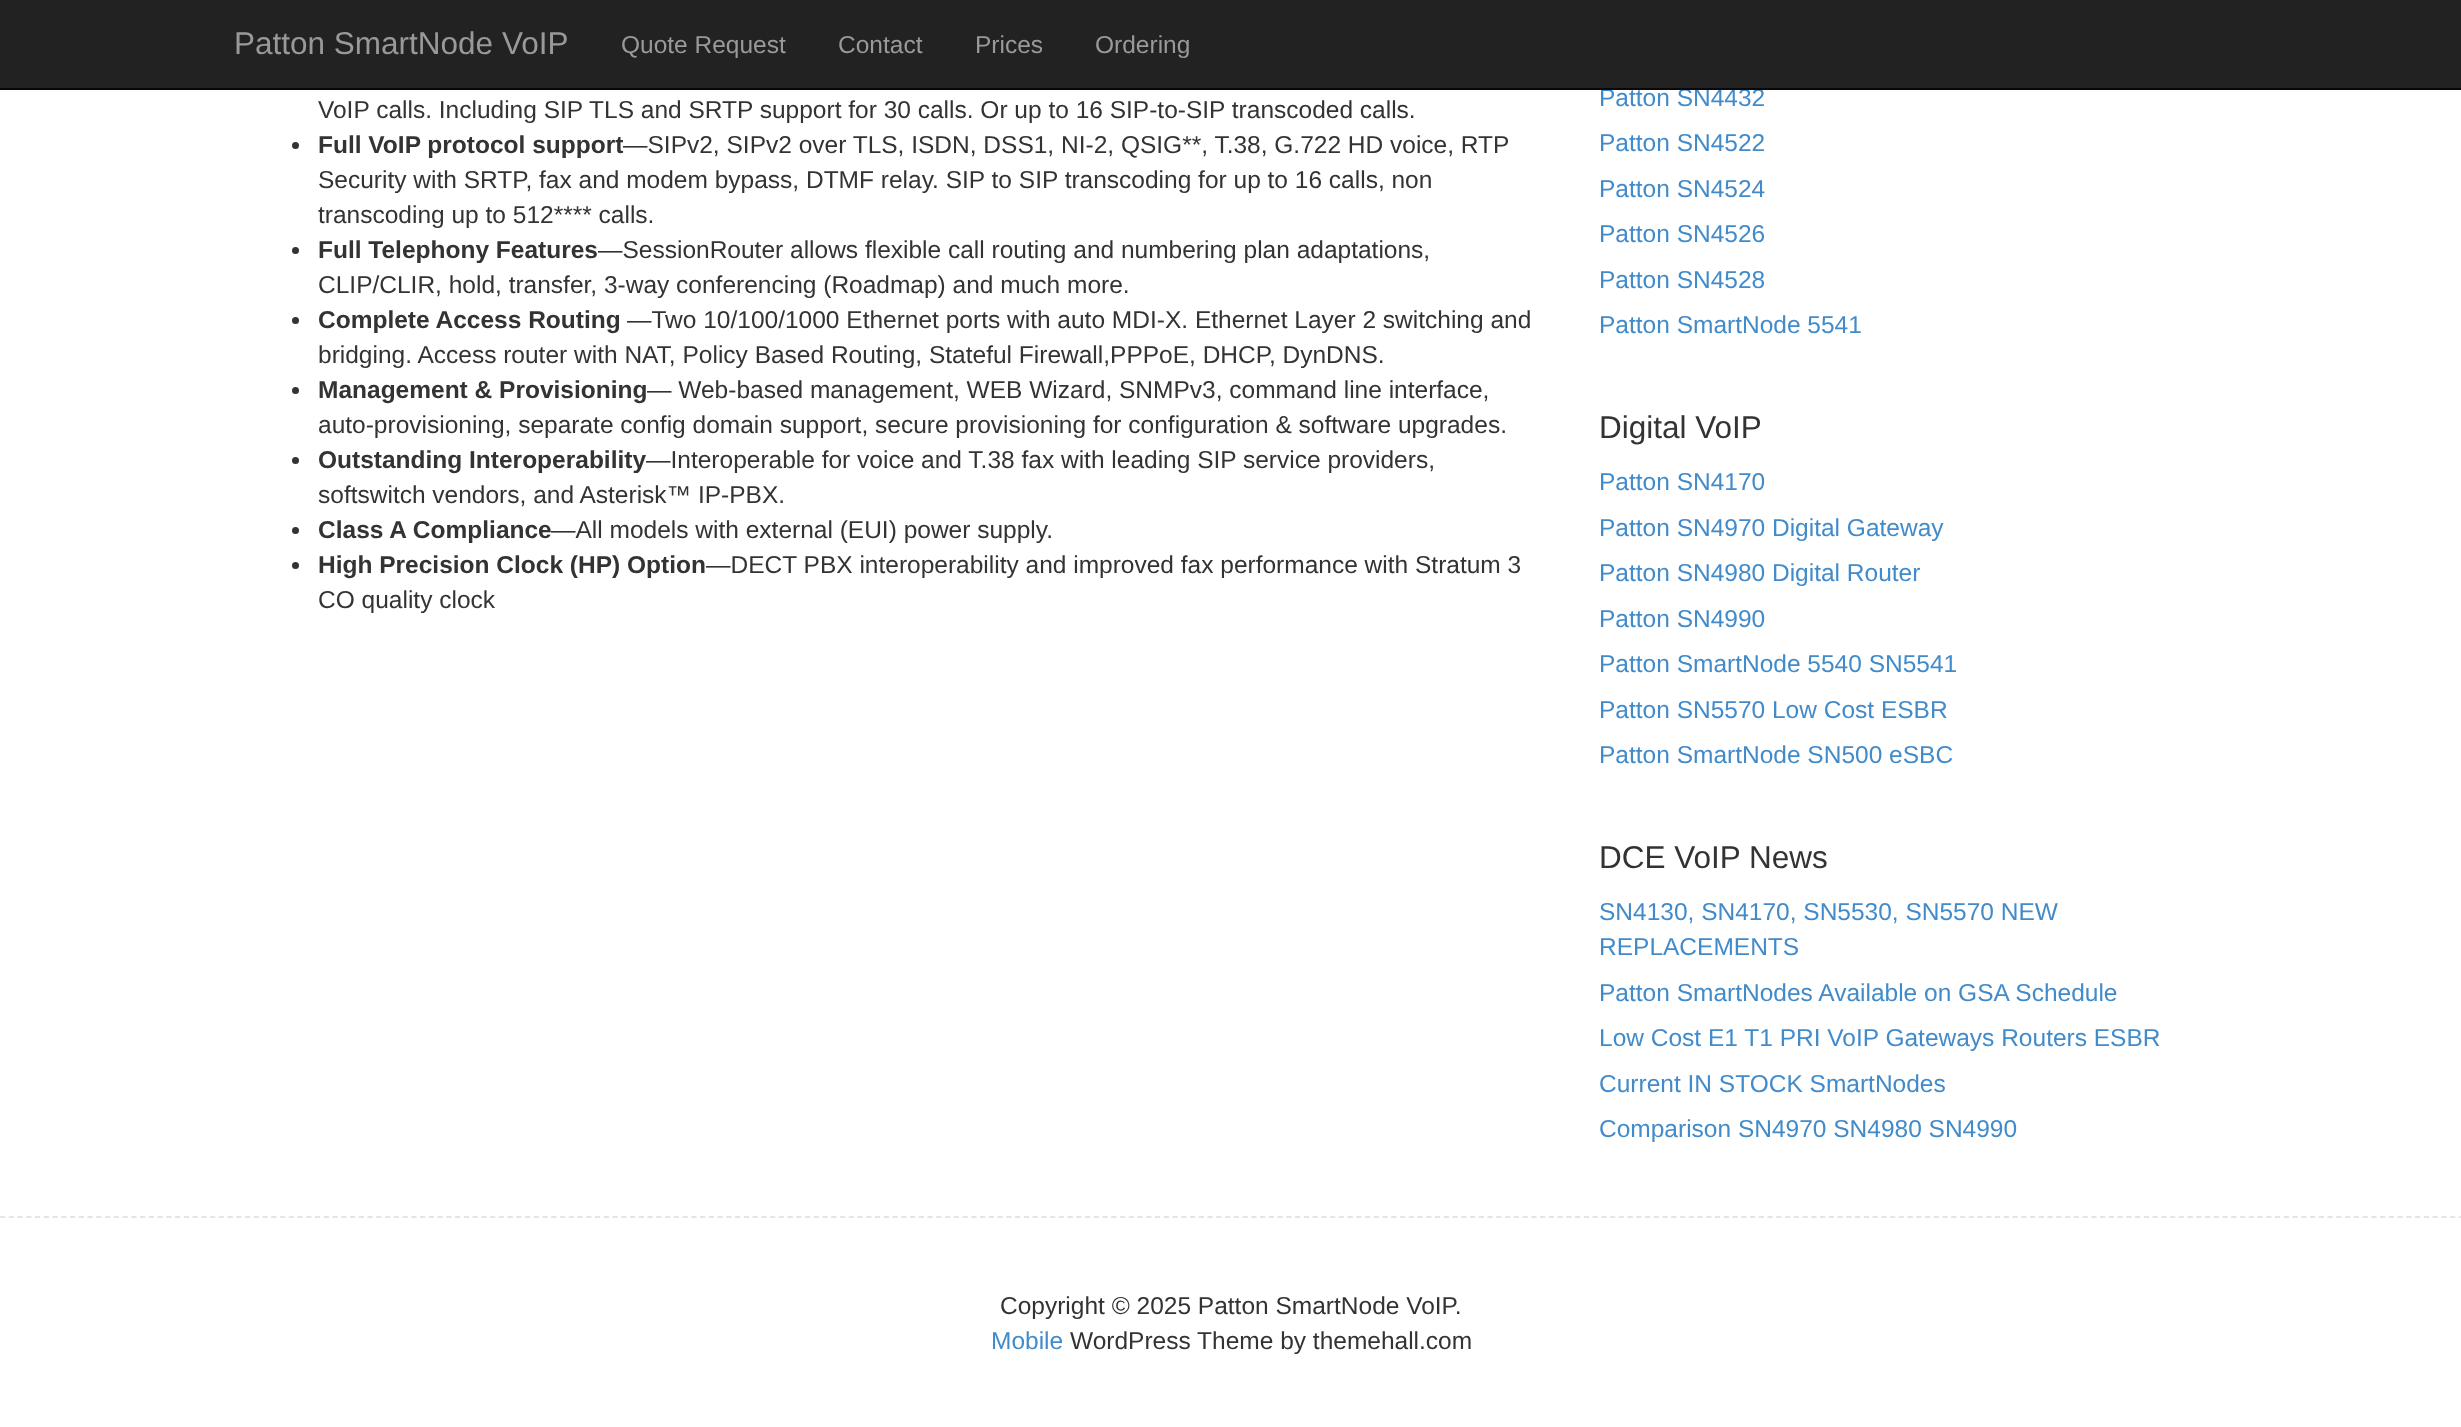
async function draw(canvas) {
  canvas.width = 2461
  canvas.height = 1427
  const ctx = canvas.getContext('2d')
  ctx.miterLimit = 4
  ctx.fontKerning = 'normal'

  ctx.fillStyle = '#fff'
  ctx.fillRect(0, 0, 2461, 1427)
  ctx.fillStyle = '#222'
  ctx.fillRect(0, 0, 2461, 88)
  ctx.font = '24.5px Liberation Sans'
  ctx.fillStyle = '#428bca'
  ctx.fillText('Patton SN4432', 1599, 106)
  ctx.fillStyle = '#080808'
  ctx.fillRect(0, 88, 2461, 2)
  ctx.font = '31.5px Liberation Sans'
  ctx.fillStyle = '#999'
  ctx.fillText('Patton SmartNode VoIP', 234, 54)
  ctx.font = '24.5px Liberation Sans'
  ctx.fillText('Quote Request', 621, 53)
  ctx.fillText('Contact', 838, 53)
  ctx.fillText('Prices', 975, 53)
  ctx.fillText('Ordering', 1095, 53)
  ctx.fillStyle = '#333'
  ctx.fillText('VoIP calls. Including SIP TLS and SRTP support for 30 calls. Or up to 16 SIP-to-SIP transcoded calls.', 318, 118)
  ctx.beginPath()
  ctx.arc(295.5, 145.5, 3.5, 0, 2 * Math.PI)
  ctx.fill()
  ctx.font = 'bold 24.5px Liberation Sans'
  ctx.fillText('Full VoIP protocol support', 318, 153)
  ctx.font = '24.5px Liberation Sans'
  ctx.fillText('—SIPv2, SIPv2 over TLS, ISDN, DSS1, NI-2, QSIG**, T.38, G.722 HD voice, RTP', 623, 153)
  ctx.fillText('Security with SRTP, fax and modem bypass, DTMF relay. SIP to SIP transcoding for up to 16 calls, non', 318, 188)
  ctx.fillText('transcoding up to 512**** calls.', 318, 223)
  ctx.beginPath()
  ctx.arc(295.5, 250.5, 3.5, 0, 2 * Math.PI)
  ctx.fill()
  ctx.font = 'bold 24.5px Liberation Sans'
  ctx.fillText('Full Telephony Features', 318, 258)
  ctx.font = '24.5px Liberation Sans'
  ctx.fillText('—SessionRouter allows flexible call routing and numbering plan adaptations,', 598, 258)
  ctx.fillText('CLIP/CLIR, hold, transfer, 3-way conferencing (Roadmap) and much more.', 318, 293)
  ctx.beginPath()
  ctx.arc(295.5, 320.5, 3.5, 0, 2 * Math.PI)
  ctx.fill()
  ctx.font = 'bold 24.5px Liberation Sans'
  ctx.fillText('Complete Access Routing', 318, 328)
  ctx.font = '24.5px Liberation Sans'
  ctx.fillText('—Two 10/100/1000 Ethernet ports with auto MDI-X. Ethernet Layer 2 switching and', 627, 328)
  ctx.fillText('bridging. Access router with NAT, Policy Based Routing, Stateful Firewall,PPPoE, DHCP, DynDNS.', 318, 363)
  ctx.beginPath()
  ctx.arc(295.5, 390.5, 3.5, 0, 2 * Math.PI)
  ctx.fill()
  ctx.font = 'bold 24.5px Liberation Sans'
  ctx.fillText('Management & Provisioning', 318, 398)
  ctx.font = '24.5px Liberation Sans'
  ctx.fillText('— Web-based management, WEB Wizard, SNMPv3, command line interface,', 647, 398)
  ctx.fillText('auto-provisioning, separate config domain support, secure provisioning for configuration & software upgrades.', 318, 433)
  ctx.beginPath()
  ctx.arc(295.5, 460.5, 3.5, 0, 2 * Math.PI)
  ctx.fill()
  ctx.font = 'bold 24.5px Liberation Sans'
  ctx.fillText('Outstanding Interoperability', 318, 468)
  ctx.font = '24.5px Liberation Sans'
  ctx.fillText('—Interoperable for voice and T.38 fax with leading SIP service providers,', 646, 468)
  ctx.fillText('softswitch vendors, and Asterisk™ IP-PBX.', 318, 503)
  ctx.beginPath()
  ctx.arc(295.5, 530.5, 3.5, 0, 2 * Math.PI)
  ctx.fill()
  ctx.font = 'bold 24.5px Liberation Sans'
  ctx.fillText('Class A Compliance', 318, 538)
  ctx.font = '24.5px Liberation Sans'
  ctx.fillText('—All models with external (EUI) power supply.', 551, 538)
  ctx.beginPath()
  ctx.arc(295.5, 565.5, 3.5, 0, 2 * Math.PI)
  ctx.fill()
  ctx.font = 'bold 24.5px Liberation Sans'
  ctx.fillText('High Precision Clock (HP) Option', 318, 573)
  ctx.font = '24.5px Liberation Sans'
  ctx.fillText('—DECT PBX interoperability and improved fax performance with Stratum 3', 706, 573)
  ctx.fillText('CO quality clock', 318, 608)
  ctx.fillStyle = '#428bca'
  ctx.fillText('Patton SN4522', 1599, 151)
  ctx.fillText('Patton SN4524', 1599, 197)
  ctx.fillText('Patton SN4526', 1599, 242)
  ctx.fillText('Patton SN4528', 1599, 288)
  ctx.fillText('Patton SmartNode 5541', 1599, 333)
  ctx.font = '31.5px Liberation Sans'
  ctx.fillStyle = '#333'
  ctx.fillText('Digital VoIP', 1599, 438)
  ctx.font = '24.5px Liberation Sans'
  ctx.fillStyle = '#428bca'
  ctx.fillText('Patton SN4170', 1599, 490)
  ctx.fillText('Patton SN4970 Digital Gateway', 1599, 536)
  ctx.fillText('Patton SN4980 Digital Router', 1599, 581)
  ctx.fillText('Patton SN4990', 1599, 627)
  ctx.fillText('Patton SmartNode 5540 SN5541', 1599, 672)
  ctx.fillText('Patton SN5570 Low Cost ESBR', 1599, 718)
  ctx.fillText('Patton SmartNode SN500 eSBC', 1599, 763)
  ctx.font = '31.5px Liberation Sans'
  ctx.fillStyle = '#333'
  ctx.fillText('DCE VoIP News', 1599, 868)
  ctx.font = '24.5px Liberation Sans'
  ctx.fillStyle = '#428bca'
  ctx.fillText('SN4130, SN4170, SN5530, SN5570 NEW', 1599, 920)
  ctx.fillText('REPLACEMENTS', 1599, 955)
  ctx.fillText('Patton SmartNodes Available on GSA Schedule', 1599, 1001)
  ctx.fillText('Low Cost E1 T1 PRI VoIP Gateways Routers ESBR', 1599, 1046)
  ctx.fillText('Current IN STOCK SmartNodes', 1599, 1092)
  ctx.fillText('Comparison SN4970 SN4980 SN4990', 1599, 1137)
  ctx.beginPath()
  ctx.moveTo(0, 1217)
  ctx.lineTo(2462, 1217)
  ctx.strokeStyle = '#e5e5e5'
  ctx.lineWidth = 1.8
  ctx.setLineDash([5.25, 3.5])
  ctx.stroke()
  ctx.fillStyle = '#333'
  ctx.fillText('Copyright © 2025 Patton SmartNode VoIP.', 1000, 1314)
  ctx.fillStyle = '#428bca'
  ctx.fillText('Mobile', 991, 1349)
  ctx.fillStyle = '#333'
  ctx.fillText('WordPress Theme by themehall.com', 1070, 1349)
}

draw(document.querySelector('canvas'))
